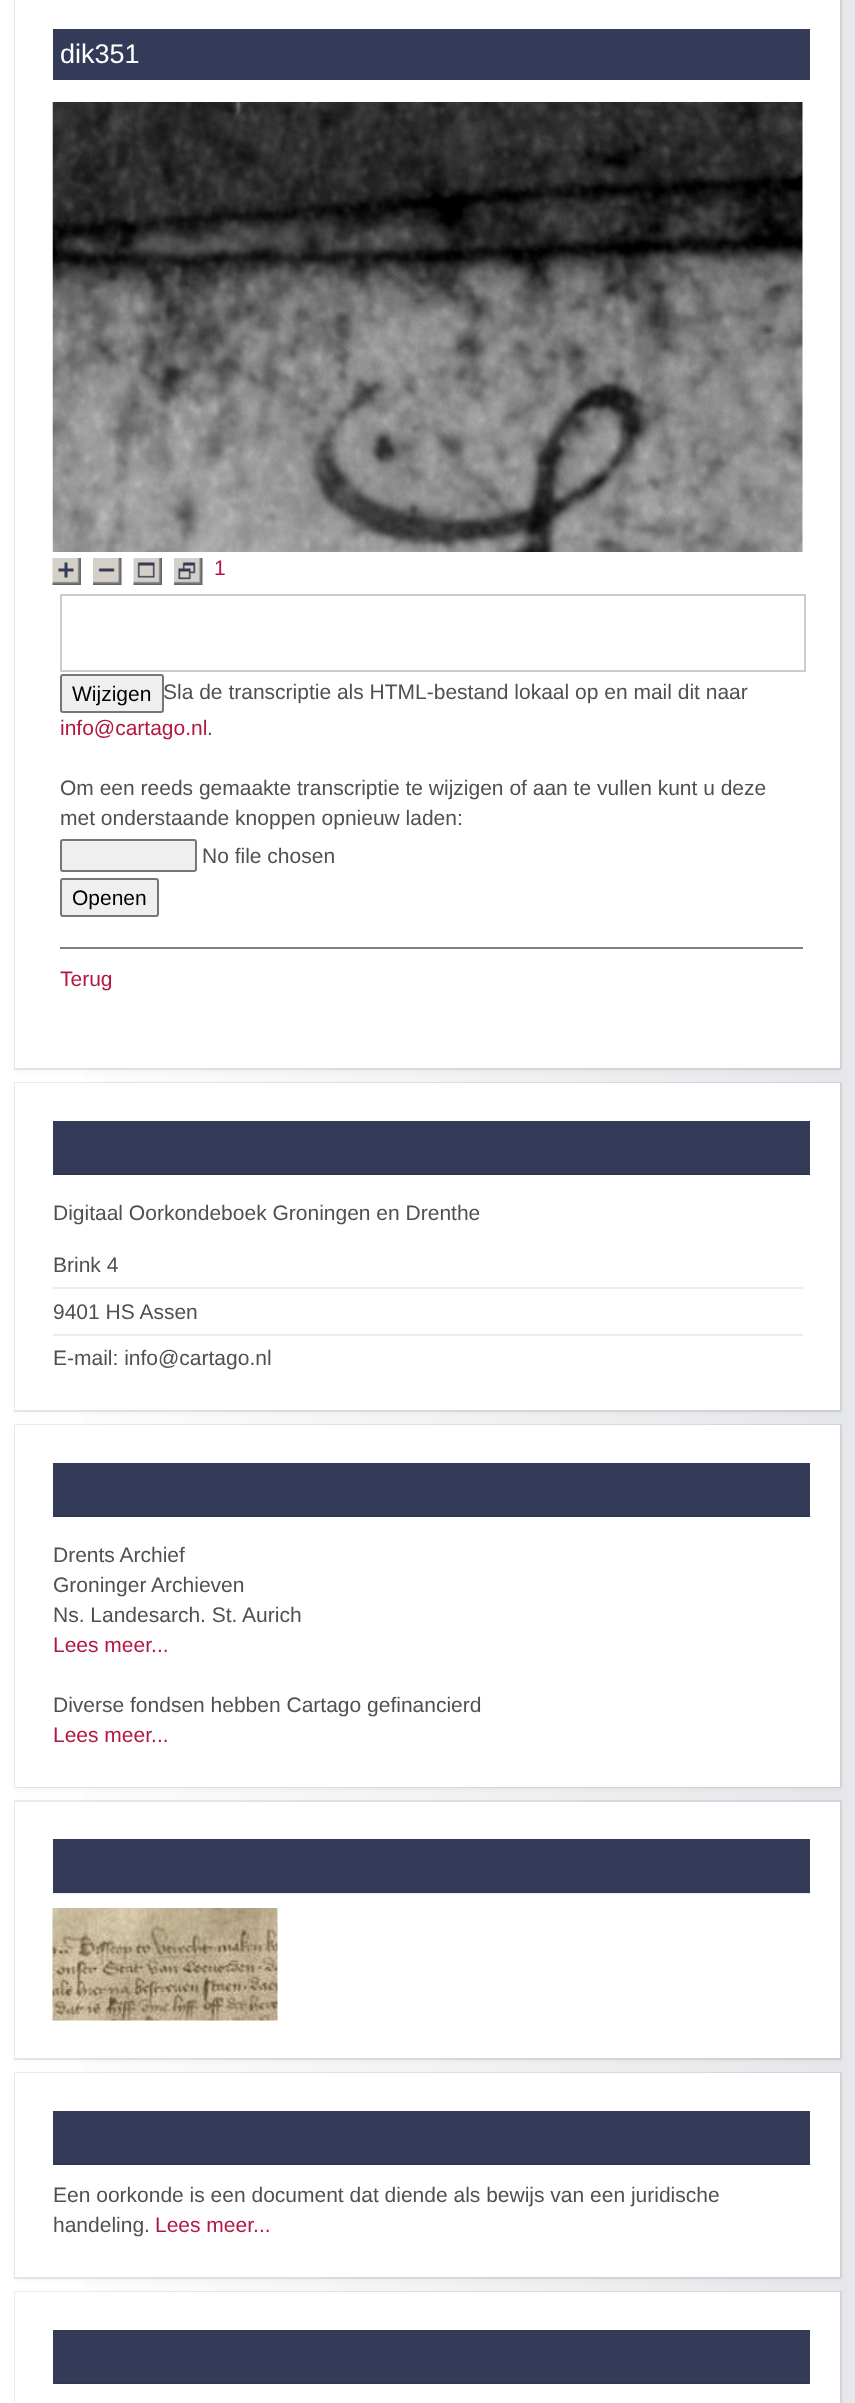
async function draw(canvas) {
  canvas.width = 855
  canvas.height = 2403
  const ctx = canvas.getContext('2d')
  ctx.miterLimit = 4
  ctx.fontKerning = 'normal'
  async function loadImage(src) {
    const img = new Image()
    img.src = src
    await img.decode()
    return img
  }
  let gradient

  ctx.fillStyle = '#fff'
  ctx.fillRect(0, 0, 855, 2403)
  gradient = ctx.createLinearGradient(0, 1202, 855, 1202)
  gradient.addColorStop(0, '#fff')
  gradient.addColorStop(1, '#e5e7ea')
  ctx.fillStyle = gradient
  ctx.fillRect(82, 0, 773, 2403)
  ctx.fillStyle = '#0000000a'
  ctx.filter = 'blur(3px)'
  ctx.beginPath()
  ctx.rect(15, -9, 825, 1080)
  ctx.fill()
  ctx.filter = 'none'
  ctx.strokeStyle = '#00000014'
  ctx.lineWidth = 2
  ctx.strokeRect(15, -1, 826, 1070)
  ctx.fillStyle = '#fff'
  ctx.fillRect(15, 0, 825, 1068)
  ctx.fillStyle = '#343b58'
  ctx.fillRect(53, 29, 757, 51)
  ctx.font = '27px Liberation Sans'
  ctx.fillStyle = '#fff'
  ctx.fillText('dik351', 60, 63)
  ctx.drawImage(await loadImage('image0.png'), 52, 102, 751, 450)
  ctx.drawImage(await loadImage('image1.png'), 52, 558, 29, 27)
  ctx.drawImage(await loadImage('image2.png'), 93, 558, 29, 27)
  ctx.drawImage(await loadImage('image3.png'), 133, 558, 29, 27)
  ctx.drawImage(await loadImage('image4.png'), 174, 558, 29, 27)
  ctx.font = '21px Liberation Sans'
  ctx.fillStyle = '#b21741'
  ctx.fillText('1', 214, 575)
  ctx.strokeStyle = '#ccc'
  ctx.strokeRect(61, 595, 744, 76)
  ctx.fillStyle = '#efefef'
  ctx.beginPath()
  ctx.roundRect(61, 675, 102, 37, 2)
  ctx.fill()
  ctx.strokeStyle = '#767676'
  ctx.stroke()
  ctx.fillStyle = '#000'
  ctx.fillText('Wijzigen', 72, 701)
  ctx.fillStyle = '#4f5054'
  ctx.fillText('Sla de transcriptie als HTML-bestand lokaal op en mail dit naar', 163, 699)
  ctx.fillStyle = '#b21741'
  ctx.fillText('info@cartago.nl', 60, 735)
  ctx.fillStyle = '#4f5054'
  ctx.fillText('.', 207, 735)
  ctx.fillText('Om een reeds gemaakte transcriptie te wijzigen of aan te vullen kunt u deze', 60, 795)
  ctx.fillText('met onderstaande knoppen opnieuw laden:', 60, 825)
  ctx.fillStyle = '#efefef'
  ctx.beginPath()
  ctx.roundRect(61, 840, 135, 31, 2)
  ctx.fill()
  ctx.stroke()
  ctx.fillStyle = '#4f5054'
  ctx.fillText('No file chosen', 202, 863)
  ctx.fillStyle = '#efefef'
  ctx.beginPath()
  ctx.roundRect(61, 879, 97, 37, 2)
  ctx.fill()
  ctx.stroke()
  ctx.fillStyle = '#000'
  ctx.fillText('Openen', 72, 905)
  ctx.fillStyle = '#808080'
  ctx.fillRect(60, 947, 743, 2)
  ctx.fillStyle = '#b21741'
  ctx.fillText('Terug', 60, 986)
  ctx.fillStyle = '#0000000a'
  ctx.filter = 'blur(3px)'
  ctx.beginPath()
  ctx.rect(15, 1086, 825, 327)
  ctx.fill()
  ctx.filter = 'none'
  ctx.strokeStyle = '#00000014'
  ctx.strokeRect(15, 1083, 826, 328)
  ctx.fillStyle = '#fff'
  ctx.fillRect(15, 1083, 825, 327)
  ctx.fillStyle = '#343b58'
  ctx.fillRect(53, 1121, 757, 52)
  ctx.fillStyle = '#303752'
  ctx.fillRect(53, 1173, 757, 2)
  ctx.fillStyle = '#4f5054'
  ctx.fillText('Digitaal Oorkondeboek Groningen en Drenthe', 53, 1220)
  ctx.fillText('Brink 4', 53, 1272)
  ctx.fillStyle = '#ededed'
  ctx.fillRect(53, 1287, 750, 2)
  ctx.fillStyle = '#4f5054'
  ctx.fillText('9401 HS Assen', 53, 1319)
  ctx.fillStyle = '#ededed'
  ctx.fillRect(53, 1334, 750, 2)
  ctx.fillStyle = '#4f5054'
  ctx.fillText('E-mail: info@cartago.nl', 53, 1365)
  ctx.fillStyle = '#0000000a'
  ctx.filter = 'blur(3px)'
  ctx.beginPath()
  ctx.rect(15, 1428, 825, 362)
  ctx.fill()
  ctx.filter = 'none'
  ctx.strokeRect(15, 1425, 826, 362)
  ctx.fillStyle = '#fff'
  ctx.fillRect(15, 1425, 825, 362)
  ctx.fillStyle = '#343b58'
  ctx.fillRect(53, 1463, 757, 52)
  ctx.fillStyle = '#303752'
  ctx.fillRect(53, 1515, 757, 2)
  ctx.fillStyle = '#4f5054'
  ctx.fillText('Drents Archief', 53, 1562)
  ctx.fillText('Groninger Archieven', 53, 1592)
  ctx.fillText('Ns. Landesarch. St. Aurich', 53, 1622)
  ctx.fillStyle = '#b21741'
  ctx.fillText('Lees meer...', 53, 1652)
  ctx.fillStyle = '#4f5054'
  ctx.fillText('Diverse fondsen hebben Cartago gefinancierd', 53, 1712)
  ctx.fillStyle = '#b21741'
  ctx.fillText('Lees meer...', 53, 1742)
  ctx.fillStyle = '#0000000a'
  ctx.filter = 'blur(3px)'
  ctx.beginPath()
  ctx.rect(15, 1805, 825, 256)
  ctx.fill()
  ctx.filter = 'none'
  ctx.strokeRect(15, 1801, 826, 258)
  ctx.fillStyle = '#fff'
  ctx.fillRect(15, 1802, 825, 256)
  ctx.fillStyle = '#ededed'
  ctx.fillRect(53, 1893, 757, 1)
  ctx.fillStyle = '#343b58'
  ctx.fillRect(53, 1839, 757, 53)
  ctx.fillStyle = '#303752'
  ctx.fillRect(53, 1892, 757, 1)
  ctx.drawImage(await loadImage('image5.png'), 52, 1908, 226, 113)
  ctx.fillStyle = '#0000000a'
  ctx.filter = 'blur(3px)'
  ctx.beginPath()
  ctx.rect(15, 2076, 825, 204)
  ctx.fill()
  ctx.filter = 'none'
  ctx.strokeRect(15, 2073, 826, 205)
  ctx.fillStyle = '#fff'
  ctx.fillRect(15, 2073, 825, 204)
  ctx.fillStyle = '#343b58'
  ctx.fillRect(53, 2111, 757, 52)
  ctx.fillStyle = '#303752'
  ctx.fillRect(53, 2163, 757, 2)
  ctx.fillStyle = '#4f5054'
  ctx.fillText('Een oorkonde is een document dat diende als bewijs van een juridische', 53, 2202)
  ctx.fillText('handeling.', 53, 2232)
  ctx.fillStyle = '#b21741'
  ctx.fillText('Lees meer...', 155, 2232)
  ctx.strokeRect(15, 2292, 826, 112)
  ctx.fillStyle = '#fff'
  ctx.fillRect(15, 2292, 825, 111)
  ctx.fillStyle = '#343b58'
  ctx.fillRect(53, 2330, 757, 52)
  ctx.fillStyle = '#303752'
  ctx.fillRect(53, 2382, 757, 2)
}

draw(document.querySelector('canvas'))
